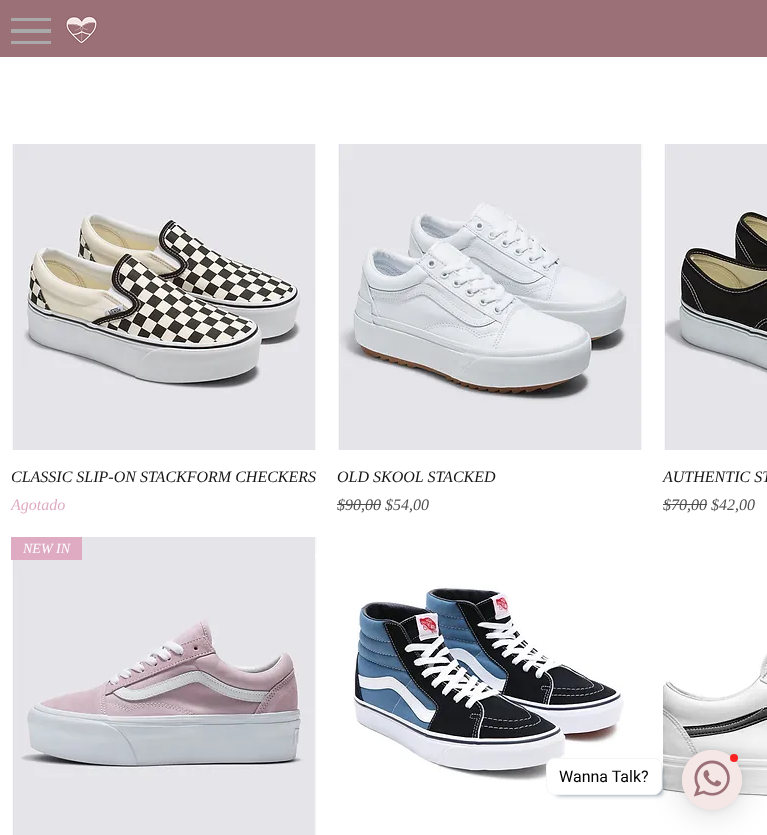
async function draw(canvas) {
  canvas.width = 767
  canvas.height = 835
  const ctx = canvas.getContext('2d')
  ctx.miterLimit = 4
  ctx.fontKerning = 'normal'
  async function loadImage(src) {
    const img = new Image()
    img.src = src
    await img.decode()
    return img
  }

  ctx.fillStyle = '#fff'
  ctx.fillRect(0, 0, 767, 835)
  ctx.fillStyle = '#9b7076'
  ctx.fillRect(0, 0, 767, 57)
  ctx.fillStyle = '#a9a9a9'
  ctx.fillRect(11, 41, 40, 3)
  ctx.fillRect(11, 18, 40, 3)
  ctx.fillRect(11, 29, 40, 4)
  ctx.drawImage(await loadImage('image0.png'), 65, 16, 33, 28)
  ctx.drawImage(await loadImage('image1.png'), 12, 144, 304, 306)
  ctx.font = 'italic 16px Liberation Serif'
  ctx.fillStyle = '#151515'
  ctx.fillText('CLASSIC SLIP-ON STACKFORM CHECKERS', 11, 482)
  ctx.fillStyle = '#deabc3'
  ctx.fillText('Agotado', 11, 510)
  ctx.drawImage(await loadImage('image2.png'), 338, 144, 305, 306)
  ctx.fillStyle = '#151515'
  ctx.fillText('OLD SKOOL STACKED', 337, 482)
  ctx.fillStyle = '#4f4f4f'
  ctx.fillText('$90,00 $54,00', 337, 510)
  ctx.fillRect(337, 504, 44, 1)
  ctx.drawImage(await loadImage('image3.png'), 664, 144, 103, 306)
  ctx.fillStyle = '#151515'
  ctx.fillText('AUTHENTIC ST', 663, 482)
  ctx.fillStyle = '#4f4f4f'
  ctx.fillText('$70,00 $42,00', 663, 510)
  ctx.fillRect(663, 504, 44, 1)
  ctx.drawImage(await loadImage('image4.png'), 12, 537, 305, 298)
  ctx.fillStyle = '#deabc3'
  ctx.fillRect(11, 537, 71, 23)
  ctx.font = 'italic 14px Liberation Serif'
  ctx.fillStyle = '#fff'
  ctx.fillText('NEW IN', 23, 553)
  ctx.drawImage(await loadImage('image5.png'), 353, 585, 271, 196)
  ctx.drawImage(await loadImage('image6.png'), 663, 653, 104, 144)
  ctx.fillStyle = '#223c5099'
  ctx.filter = 'blur(2.5px)'
  ctx.beginPath()
  ctx.roundRect(556, 768, 106, 27, 3)
  ctx.fill()
  ctx.filter = 'none'
  ctx.fillStyle = '#00000029'
  ctx.filter = 'blur(16px)'
  ctx.beginPath()
  ctx.roundRect(682, 752, 60, 60, 30)
  ctx.fill()
  ctx.filter = 'none'
  ctx.fillStyle = '#fff'
  ctx.beginPath()
  ctx.roundRect(546.5, 758.5, 115, 36, 7.5)
  ctx.fill()
  ctx.strokeStyle = '#f5f5f5'
  ctx.stroke()
  ctx.font = '16px Roboto'
  ctx.fillStyle = '#000'
  ctx.fillText('Wanna Talk?', 559, 782)
  ctx.fillStyle = '#0000000f'
  ctx.filter = 'blur(3px)'
  ctx.beginPath()
  ctx.roundRect(682, 751, 60, 60, 30)
  ctx.fill()
  ctx.filter = 'none'
  ctx.fillStyle = '#f5e7e6'
  ctx.beginPath()
  ctx.arc(712, 780, 30, 0, 2 * Math.PI)
  ctx.fill()
  ctx.drawImage(await loadImage('image7.png'), 682, 750, 60, 47)
  ctx.fillStyle = '#ff0000d9'
  ctx.beginPath()
  ctx.arc(734, 758, 4, 0, 2 * Math.PI)
  ctx.fill()
}

draw(document.querySelector('canvas'))
